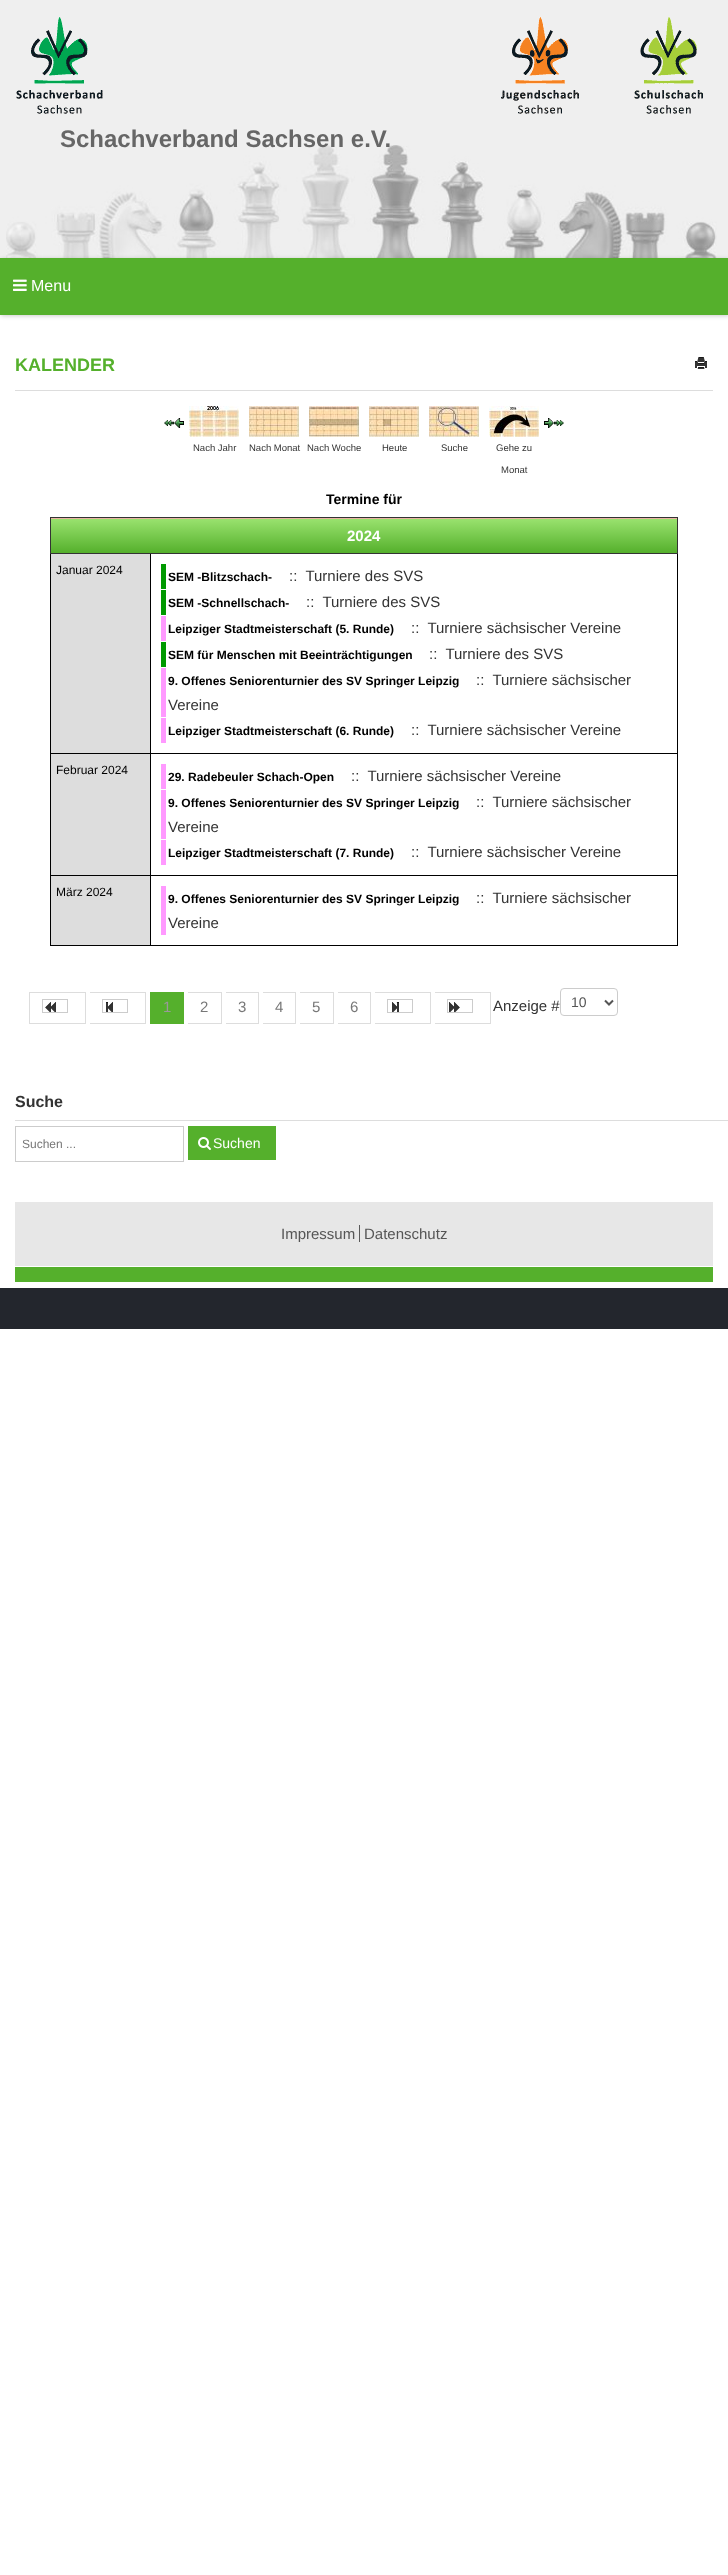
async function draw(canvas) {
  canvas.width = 728
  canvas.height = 2575
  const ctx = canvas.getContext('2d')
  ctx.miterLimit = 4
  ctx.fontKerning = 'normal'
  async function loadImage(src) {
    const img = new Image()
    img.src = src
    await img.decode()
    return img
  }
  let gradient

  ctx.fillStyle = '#fff'
  ctx.fillRect(0, 0, 728, 2575)
  ctx.fillStyle = '#efefef'
  ctx.fillRect(0, 0, 728, 258)
  ctx.drawImage(await loadImage('image0.png'), 16, 17, 87, 97)
  ctx.drawImage(await loadImage('image1.png'), 501, 17, 78, 97)
  ctx.drawImage(await loadImage('image2.png'), 634, 17, 69, 97)
  ctx.drawImage(await loadImage('image3.png'), 6, 145, 711, 113)
  ctx.font = 'bold 24px Liberation Sans'
  ctx.fillStyle = '#666'
  ctx.fillText('Schachverband Sachsen e.V.', 60, 147)
  ctx.fillStyle = '#00000033'
  ctx.filter = 'blur(2px)'
  ctx.beginPath()
  ctx.rect(1, 259, 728, 57)
  ctx.fill()
  ctx.filter = 'none'
  ctx.fillStyle = '#55b02c'
  ctx.fillRect(0, 258, 728, 57)
  ctx.drawImage(await loadImage('image4.png'), 13, 279, 14, 12)
  ctx.font = '16px Liberation Sans'
  ctx.fillStyle = '#fff'
  ctx.fillText('Menu', 31, 291)
  ctx.fillStyle = '#ddd'
  ctx.fillRect(15, 390, 698, 1)
  ctx.font = 'bold 18px Liberation Sans'
  ctx.fillStyle = '#55b02c'
  ctx.fillText('KALENDER', 15, 371)
  ctx.drawImage(await loadImage('image5.png'), 695, 357, 12, 12)
  ctx.drawImage(await loadImage('image6.png'), 164, 420, 10, 6)
  ctx.drawImage(await loadImage('image7.png'), 174, 418, 10, 10)
  ctx.drawImage(await loadImage('image8.png'), 189, 406, 50, 31)
  ctx.drawImage(await loadImage('image9.png'), 249, 406, 50, 31)
  ctx.drawImage(await loadImage('image10.png'), 309, 406, 50, 31)
  ctx.drawImage(await loadImage('image11.png'), 369, 406, 50, 31)
  ctx.drawImage(await loadImage('image12.png'), 429, 406, 50, 31)
  ctx.drawImage(await loadImage('image13.png'), 489, 406, 50, 31)
  ctx.drawImage(await loadImage('image14.png'), 544, 418, 10, 10)
  ctx.drawImage(await loadImage('image15.png'), 554, 420, 10, 6)
  ctx.font = '9.5px Liberation Sans'
  ctx.fillStyle = '#333'
  ctx.fillText('Nach Jahr', 193, 451)
  ctx.fillText('Nach Monat', 249, 451)
  ctx.fillText('Nach Woche', 307, 451)
  ctx.fillText('Heute', 382, 451)
  ctx.fillText('Suche', 441, 451)
  ctx.fillText('Gehe zu', 496, 451)
  ctx.fillText('Monat', 501, 473)
  ctx.font = 'bold 14px Liberation Sans'
  ctx.fillStyle = '#000'
  ctx.fillText('Termine für', 326, 504)
  ctx.fillRect(677, 554, 1, 392)
  ctx.fillRect(50, 945, 628, 1)
  ctx.fillRect(50, 554, 1, 392)
  ctx.fillStyle = '#e9b4a1'
  ctx.fillRect(51, 518, 626, 1)
  gradient = ctx.createLinearGradient(364, 519, 364, 553)
  gradient.addColorStop(0, '#99e26e')
  gradient.addColorStop(1, '#55b02c')
  ctx.fillStyle = gradient
  ctx.fillRect(51, 519, 626, 34)
  ctx.fillStyle = '#333'
  ctx.fillRect(50, 517, 628, 1)
  ctx.fillRect(677, 517, 1, 37)
  ctx.fillStyle = '#000'
  ctx.fillRect(50, 753, 628, 1)
  ctx.fillRect(50, 875, 628, 1)
  ctx.fillRect(150, 875, 1, 71)
  ctx.fillRect(150, 553, 1, 323)
  ctx.fillStyle = '#333'
  ctx.fillRect(50, 553, 628, 1)
  ctx.fillRect(50, 517, 1, 37)
  ctx.font = 'bold 15px Liberation Sans'
  ctx.fillStyle = '#fff'
  ctx.fillText('2024', 347, 541)
  ctx.fillStyle = '#ddd'
  ctx.fillRect(51, 554, 99, 199)
  ctx.font = '12px Liberation Sans'
  ctx.fillStyle = '#000'
  ctx.fillText('Januar 2024', 56, 574)
  ctx.fillStyle = '#090'
  ctx.fillRect(161, 564, 5, 25)
  ctx.font = 'bold 12px Liberation Sans'
  ctx.fillStyle = '#000'
  ctx.fillText('SEM -Blitzschach-', 168, 581)
  ctx.font = '15px Liberation Sans'
  ctx.fillStyle = '#333'
  ctx.fillText('::  Turniere des SVS', 289, 581)
  ctx.fillStyle = '#090'
  ctx.fillRect(161, 590, 5, 25)
  ctx.font = 'bold 12px Liberation Sans'
  ctx.fillStyle = '#000'
  ctx.fillText('SEM -Schnellschach-', 168, 607)
  ctx.font = '15px Liberation Sans'
  ctx.fillStyle = '#333'
  ctx.fillText('::  Turniere des SVS', 306, 607)
  ctx.fillStyle = '#f9f'
  ctx.fillRect(161, 616, 5, 25)
  ctx.font = 'bold 12px Liberation Sans'
  ctx.fillStyle = '#000'
  ctx.fillText('Leipziger Stadtmeisterschaft (5. Runde)', 168, 633)
  ctx.font = '15px Liberation Sans'
  ctx.fillStyle = '#333'
  ctx.fillText('::  Turniere sächsischer Vereine', 411, 633)
  ctx.fillStyle = '#090'
  ctx.fillRect(161, 642, 5, 25)
  ctx.font = 'bold 12px Liberation Sans'
  ctx.fillStyle = '#000'
  ctx.fillText('SEM für Menschen mit Beeinträchtigungen', 168, 659)
  ctx.font = '15px Liberation Sans'
  ctx.fillStyle = '#333'
  ctx.fillText('::  Turniere des SVS', 429, 659)
  ctx.fillStyle = '#f9f'
  ctx.fillRect(161, 668, 5, 49)
  ctx.font = 'bold 12px Liberation Sans'
  ctx.fillStyle = '#000'
  ctx.fillText('9. Offenes Seniorenturnier des SV Springer Leipzig', 168, 685)
  ctx.font = '15px Liberation Sans'
  ctx.fillStyle = '#333'
  ctx.fillText('::  Turniere sächsischer', 476, 685)
  ctx.fillText('Vereine', 168, 710)
  ctx.fillStyle = '#f9f'
  ctx.fillRect(161, 718, 5, 25)
  ctx.font = 'bold 12px Liberation Sans'
  ctx.fillStyle = '#000'
  ctx.fillText('Leipziger Stadtmeisterschaft (6. Runde)', 168, 735)
  ctx.font = '15px Liberation Sans'
  ctx.fillStyle = '#333'
  ctx.fillText('::  Turniere sächsischer Vereine', 411, 735)
  ctx.fillStyle = '#ddd'
  ctx.fillRect(51, 754, 99, 121)
  ctx.font = '12px Liberation Sans'
  ctx.fillStyle = '#000'
  ctx.fillText('Februar 2024', 56, 774)
  ctx.fillStyle = '#f9f'
  ctx.fillRect(161, 764, 5, 25)
  ctx.font = 'bold 12px Liberation Sans'
  ctx.fillStyle = '#000'
  ctx.fillText('29. Radebeuler Schach-Open', 168, 781)
  ctx.font = '15px Liberation Sans'
  ctx.fillStyle = '#333'
  ctx.fillText('::  Turniere sächsischer Vereine', 351, 781)
  ctx.fillStyle = '#f9f'
  ctx.fillRect(161, 790, 5, 49)
  ctx.font = 'bold 12px Liberation Sans'
  ctx.fillStyle = '#000'
  ctx.fillText('9. Offenes Seniorenturnier des SV Springer Leipzig', 168, 807)
  ctx.font = '15px Liberation Sans'
  ctx.fillStyle = '#333'
  ctx.fillText('::  Turniere sächsischer', 476, 807)
  ctx.fillText('Vereine', 168, 832)
  ctx.fillStyle = '#f9f'
  ctx.fillRect(161, 840, 5, 25)
  ctx.font = 'bold 12px Liberation Sans'
  ctx.fillStyle = '#000'
  ctx.fillText('Leipziger Stadtmeisterschaft (7. Runde)', 168, 857)
  ctx.font = '15px Liberation Sans'
  ctx.fillStyle = '#333'
  ctx.fillText('::  Turniere sächsischer Vereine', 411, 857)
  ctx.fillStyle = '#ddd'
  ctx.fillRect(51, 876, 99, 69)
  ctx.font = '12px Liberation Sans'
  ctx.fillStyle = '#000'
  ctx.fillText('März 2024', 56, 896)
  ctx.fillStyle = '#f9f'
  ctx.fillRect(161, 886, 5, 49)
  ctx.font = 'bold 12px Liberation Sans'
  ctx.fillStyle = '#000'
  ctx.fillText('9. Offenes Seniorenturnier des SV Springer Leipzig', 168, 903)
  ctx.font = '15px Liberation Sans'
  ctx.fillStyle = '#333'
  ctx.fillText('::  Turniere sächsischer', 476, 903)
  ctx.fillText('Vereine', 168, 928)
  ctx.strokeStyle = '#ddd'
  ctx.strokeRect(29.5, 992.5, 56, 31)
  ctx.drawImage(await loadImage('image16.png'), 45, 1002, 11, 10)
  ctx.strokeStyle = '#ccc'
  ctx.strokeRect(42.5, 999.5, 25, 13)
  ctx.fillStyle = '#ddd'
  ctx.fillRect(90, 992, 56, 1)
  ctx.fillRect(145, 992, 1, 32)
  ctx.fillRect(90, 1023, 56, 1)
  ctx.drawImage(await loadImage('image17.png'), 106, 1002, 7, 10)
  ctx.strokeRect(102.5, 999.5, 25, 13)
  ctx.fillStyle = '#55b02c'
  ctx.fillRect(150, 992, 34, 32)
  ctx.fillStyle = '#999'
  ctx.fillText('1', 163, 1012)
  ctx.fillStyle = '#ddd'
  ctx.fillRect(188, 992, 34, 1)
  ctx.fillRect(221, 992, 1, 32)
  ctx.fillRect(188, 1023, 34, 1)
  ctx.fillStyle = '#777'
  ctx.fillText('2', 200, 1012)
  ctx.fillStyle = '#ddd'
  ctx.fillRect(226, 992, 33, 1)
  ctx.fillRect(258, 992, 1, 32)
  ctx.fillRect(226, 1023, 33, 1)
  ctx.fillStyle = '#777'
  ctx.fillText('3', 238, 1012)
  ctx.fillStyle = '#ddd'
  ctx.fillRect(263, 992, 33, 1)
  ctx.fillRect(295, 992, 1, 32)
  ctx.fillRect(263, 1023, 33, 1)
  ctx.fillStyle = '#777'
  ctx.fillText('4', 275, 1012)
  ctx.fillStyle = '#ddd'
  ctx.fillRect(300, 992, 34, 1)
  ctx.fillRect(333, 992, 1, 32)
  ctx.fillRect(300, 1023, 34, 1)
  ctx.fillStyle = '#777'
  ctx.fillText('5', 312, 1012)
  ctx.fillStyle = '#ddd'
  ctx.fillRect(338, 992, 33, 1)
  ctx.fillRect(370, 992, 1, 32)
  ctx.fillRect(338, 1023, 33, 1)
  ctx.fillStyle = '#777'
  ctx.fillText('6', 350, 1012)
  ctx.fillStyle = '#ddd'
  ctx.fillRect(375, 992, 56, 1)
  ctx.fillRect(430, 992, 1, 32)
  ctx.fillRect(375, 1023, 56, 1)
  ctx.drawImage(await loadImage('image18.png'), 392, 1002, 7, 10)
  ctx.strokeRect(387.5, 999.5, 25, 13)
  ctx.fillRect(435, 992, 56, 1)
  ctx.fillRect(490, 992, 1, 32)
  ctx.fillRect(435, 1023, 56, 1)
  ctx.drawImage(await loadImage('image19.png'), 449, 1002, 11, 10)
  ctx.strokeRect(447.5, 999.5, 25, 13)
  ctx.fillStyle = '#333'
  ctx.fillText('Anzeige #', 493, 1011)
  ctx.beginPath()
  ctx.roundRect(560.5, 988.5, 57, 27, 3.5)
  ctx.stroke()
  ctx.beginPath()
  ctx.moveTo(605, 1000.5)
  ctx.lineTo(609, 1004.5)
  ctx.lineTo(613, 1000.5)
  ctx.strokeStyle = '#555'
  ctx.lineWidth = 2
  ctx.stroke()
  ctx.font = '14px Liberation Sans'
  ctx.fillStyle = '#555'
  ctx.fillText('10', 571, 1007)
  ctx.fillStyle = '#ddd'
  ctx.fillRect(15, 1120, 713, 1)
  ctx.font = 'bold 16px Liberation Sans'
  ctx.fillStyle = '#333'
  ctx.fillText('Suche', 15, 1107)
  ctx.strokeStyle = '#ccc'
  ctx.lineWidth = 1
  ctx.strokeRect(15.5, 1126.5, 168, 35)
  ctx.font = '12px Liberation Sans'
  ctx.fillStyle = '#777'
  ctx.fillText('Suchen ...', 22, 1148)
  ctx.fillStyle = '#55b02c'
  ctx.fillRect(188, 1126, 88, 34)
  ctx.drawImage(await loadImage('image20.png'), 198, 1137, 13, 13)
  ctx.font = '14px Liberation Sans'
  ctx.fillStyle = '#fff'
  ctx.fillText('Suchen', 213, 1148)
  ctx.fillStyle = '#e7e7e7'
  ctx.fillRect(15, 1202, 698, 64)
  ctx.font = '15px Liberation Sans'
  ctx.fillStyle = '#555'
  ctx.fillText('Impressum', 281, 1239)
  ctx.fillStyle = '#5a5a5a'
  ctx.fillRect(359, 1225, 1, 17)
  ctx.fillStyle = '#555'
  ctx.fillText('Datenschutz', 364, 1239)
  ctx.fillStyle = '#55b02c'
  ctx.fillRect(15, 1267, 698, 15)
  ctx.fillStyle = '#23262d'
  ctx.fillRect(0, 1288, 728, 41)
}

draw(document.querySelector('canvas'))
